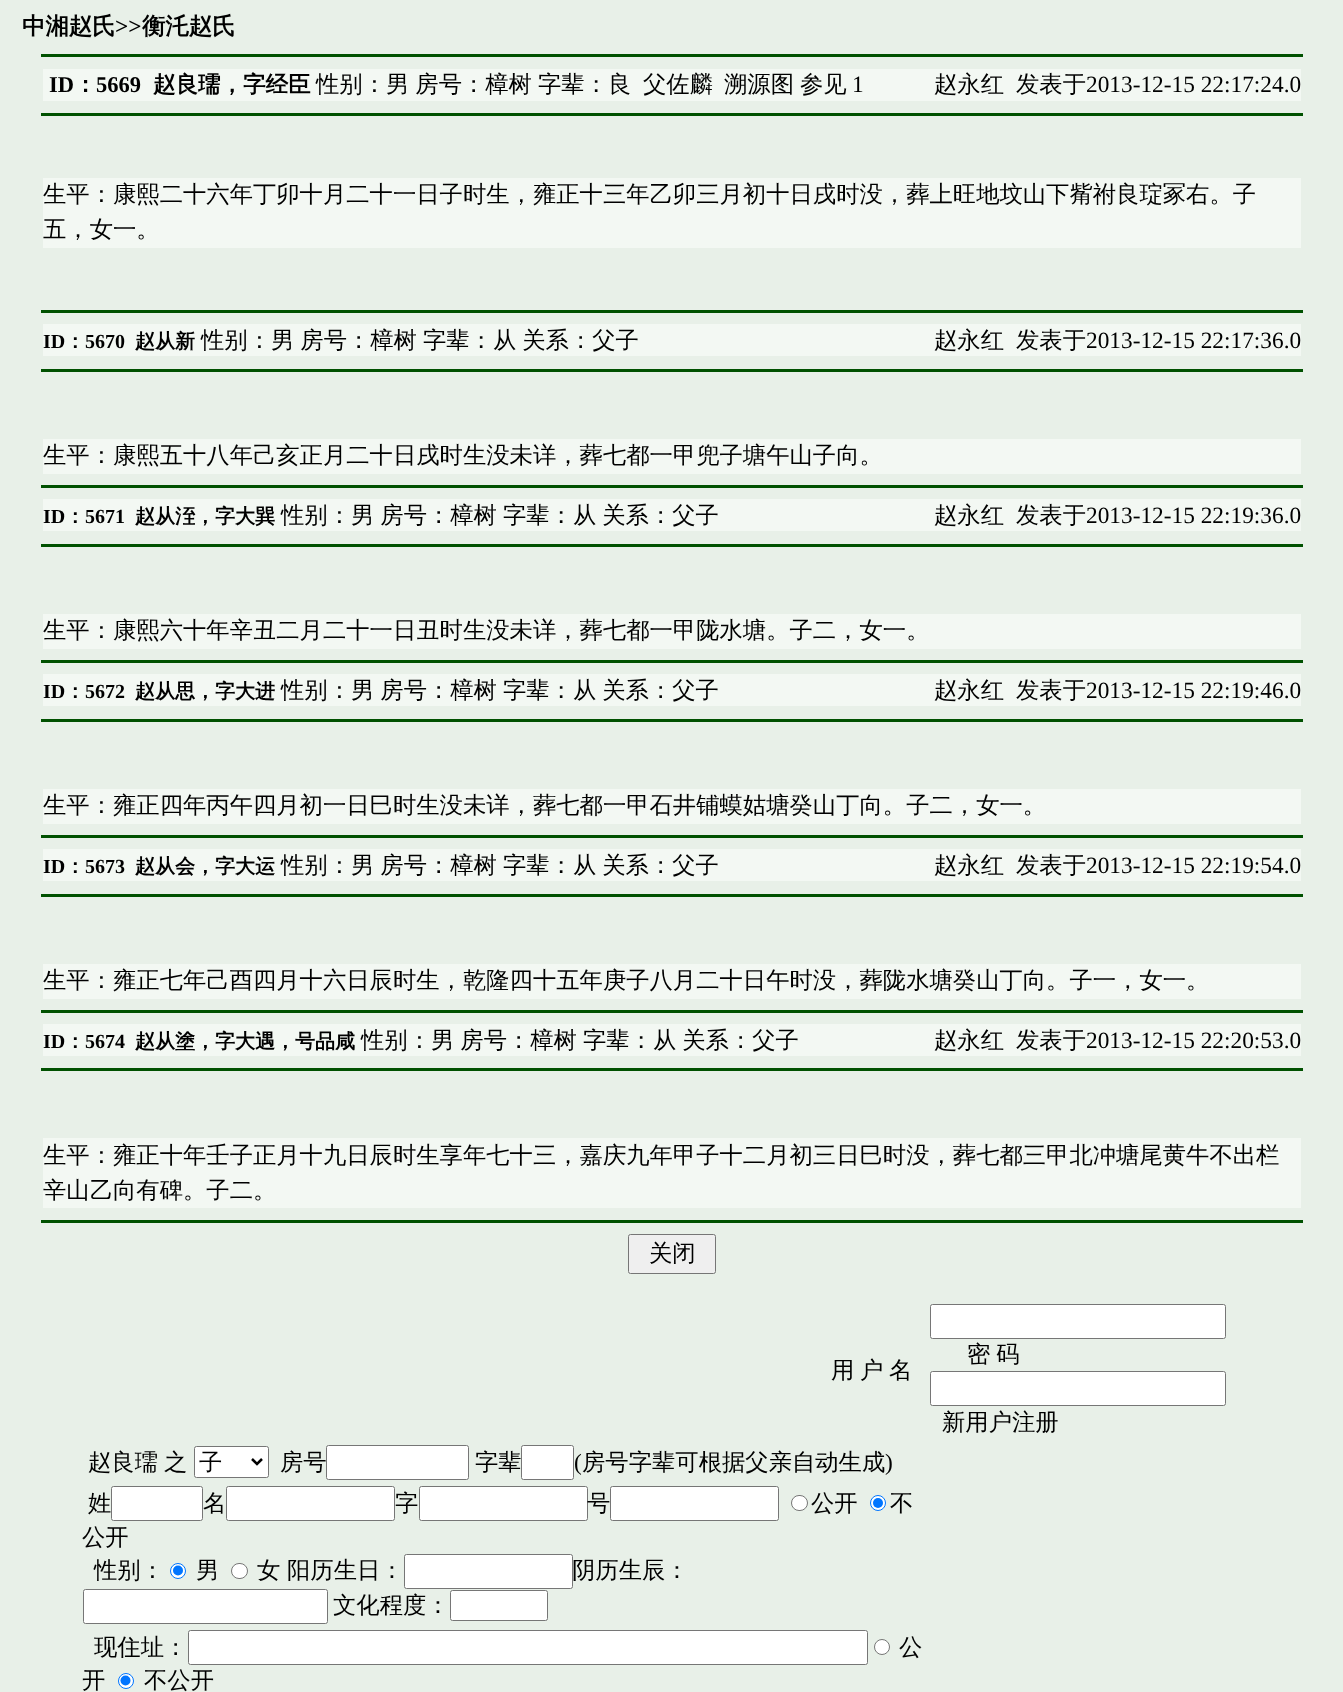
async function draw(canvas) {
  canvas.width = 1343
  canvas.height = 1692
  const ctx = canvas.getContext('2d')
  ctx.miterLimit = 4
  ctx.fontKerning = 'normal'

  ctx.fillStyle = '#e8f0e8'
  ctx.fillRect(0, 0, 1343, 1692)
  ctx.font = 'bold 23.33px WenQuanYi Zen Hei'
  ctx.fillStyle = '#000'
  ctx.fillText('中湘赵氏', 22, 34)
  ctx.font = 'bold 23.33px Liberation Serif'
  ctx.fillText('>>', 115, 34)
  ctx.font = 'bold 23.33px WenQuanYi Zen Hei'
  ctx.fillText('衡汑赵氏', 142, 34)
  ctx.fillStyle = '#005100'
  ctx.fillRect(41, 54, 1262, 3)
  ctx.fillStyle = '#f3f8f3'
  ctx.fillRect(43, 69, 1258, 32)
  ctx.font = 'bold 22.5px Liberation Serif'
  ctx.fillStyle = '#000'
  ctx.fillText('ID', 49, 92)
  ctx.font = 'bold 22.5px WenQuanYi Zen Hei'
  ctx.fillText('：', 74, 92)
  ctx.font = 'bold 22.5px Liberation Serif'
  ctx.fillText('5669', 96, 92)
  ctx.font = 'bold 22.5px WenQuanYi Zen Hei'
  ctx.fillText('赵良瓀，字经臣', 153, 92)
  ctx.wordSpacing = '-1px'
  ctx.font = '500 23.33px WenQuanYi Zen Hei'
  ctx.fillText('性别：男 房号：樟树 字辈：良', 316, 92)
  ctx.wordSpacing = '0px'
  ctx.fillText('父佐麟', 643, 92)
  ctx.fillText('溯源图', 724, 92)
  ctx.fillText('参见', 800, 92)
  ctx.font = '23.33px Liberation Serif'
  ctx.fillText('1', 852, 92)
  ctx.font = '500 23.33px WenQuanYi Zen Hei'
  ctx.fillText('赵永红', 934, 92)
  ctx.fillText('发表于', 1016, 92)
  ctx.font = '23.33px Liberation Serif'
  ctx.fillText('2013-12-15 22:17:24.0', 1086, 92)
  ctx.fillStyle = '#005100'
  ctx.fillRect(41, 113, 1262, 3)
  ctx.fillStyle = '#f3f8f3'
  ctx.fillRect(43, 178, 1258, 70)
  ctx.font = '500 23.33px WenQuanYi Zen Hei'
  ctx.fillStyle = '#000'
  ctx.fillText('生平：康熙二十六年丁卯十月二十一日子时生，雍正十三年乙卯三月初十日戌时没，葬上旺地坟山下觜祔良琔冢右。子', 43, 202)
  ctx.fillText('五，女一。', 43, 237)
  ctx.fillStyle = '#005100'
  ctx.fillRect(41, 310, 1262, 3)
  ctx.fillStyle = '#f3f8f3'
  ctx.fillRect(43, 324, 1258, 32)
  ctx.font = 'bold 20px Liberation Serif'
  ctx.fillStyle = '#000'
  ctx.fillText('ID', 43, 348)
  ctx.font = 'bold 20px WenQuanYi Zen Hei'
  ctx.fillText('：', 65, 348)
  ctx.font = 'bold 20px Liberation Serif'
  ctx.fillText('5670', 85, 348)
  ctx.font = 'bold 20px WenQuanYi Zen Hei'
  ctx.fillText('赵从新', 135, 348)
  ctx.wordSpacing = '-1px'
  ctx.font = '500 23.33px WenQuanYi Zen Hei'
  ctx.fillText('性别：男 房号：樟树 字辈：从 关系：父子', 201, 348)
  ctx.wordSpacing = '0px'
  ctx.fillText('赵永红', 934, 348)
  ctx.fillText('发表于', 1016, 348)
  ctx.font = '23.33px Liberation Serif'
  ctx.fillText('2013-12-15 22:17:36.0', 1086, 348)
  ctx.fillStyle = '#005100'
  ctx.fillRect(41, 369, 1262, 3)
  ctx.fillStyle = '#f3f8f3'
  ctx.fillRect(43, 439, 1258, 35)
  ctx.font = '500 23.33px WenQuanYi Zen Hei'
  ctx.fillStyle = '#000'
  ctx.fillText('生平：康熙五十八年己亥正月二十日戌时生没未详，葬七都一甲兜子塘午山子向。', 43, 463)
  ctx.fillStyle = '#005100'
  ctx.fillRect(41, 485, 1262, 3)
  ctx.fillStyle = '#f3f8f3'
  ctx.fillRect(43, 499, 1258, 32)
  ctx.font = 'bold 20px Liberation Serif'
  ctx.fillStyle = '#000'
  ctx.fillText('ID', 43, 523)
  ctx.font = 'bold 20px WenQuanYi Zen Hei'
  ctx.fillText('：', 65, 523)
  ctx.font = 'bold 20px Liberation Serif'
  ctx.fillText('5671', 85, 523)
  ctx.font = 'bold 20px WenQuanYi Zen Hei'
  ctx.fillText('赵从洷，字大巽', 135, 523)
  ctx.wordSpacing = '-1px'
  ctx.font = '500 23.33px WenQuanYi Zen Hei'
  ctx.fillText('性别：男 房号：樟树 字辈：从 关系：父子', 281, 523)
  ctx.wordSpacing = '0px'
  ctx.fillText('赵永红', 934, 523)
  ctx.fillText('发表于', 1016, 523)
  ctx.font = '23.33px Liberation Serif'
  ctx.fillText('2013-12-15 22:19:36.0', 1086, 523)
  ctx.fillStyle = '#005100'
  ctx.fillRect(41, 544, 1262, 3)
  ctx.fillStyle = '#f3f8f3'
  ctx.fillRect(43, 614, 1258, 35)
  ctx.font = '500 23.33px WenQuanYi Zen Hei'
  ctx.fillStyle = '#000'
  ctx.fillText('生平：康熙六十年辛丑二月二十一日丑时生没未详，葬七都一甲陇水塘。子二，女一。', 43, 638)
  ctx.fillStyle = '#005100'
  ctx.fillRect(41, 660, 1262, 3)
  ctx.fillStyle = '#f3f8f3'
  ctx.fillRect(43, 674, 1258, 32)
  ctx.font = 'bold 20px Liberation Serif'
  ctx.fillStyle = '#000'
  ctx.fillText('ID', 43, 698)
  ctx.font = 'bold 20px WenQuanYi Zen Hei'
  ctx.fillText('：', 65, 698)
  ctx.font = 'bold 20px Liberation Serif'
  ctx.fillText('5672', 85, 698)
  ctx.font = 'bold 20px WenQuanYi Zen Hei'
  ctx.fillText('赵从思，字大进', 135, 698)
  ctx.wordSpacing = '-1px'
  ctx.font = '500 23.33px WenQuanYi Zen Hei'
  ctx.fillText('性别：男 房号：樟树 字辈：从 关系：父子', 281, 698)
  ctx.wordSpacing = '0px'
  ctx.fillText('赵永红', 934, 698)
  ctx.fillText('发表于', 1016, 698)
  ctx.font = '23.33px Liberation Serif'
  ctx.fillText('2013-12-15 22:19:46.0', 1086, 698)
  ctx.fillStyle = '#005100'
  ctx.fillRect(41, 719, 1262, 3)
  ctx.fillStyle = '#f3f8f3'
  ctx.fillRect(43, 789, 1258, 35)
  ctx.font = '500 23.33px WenQuanYi Zen Hei'
  ctx.fillStyle = '#000'
  ctx.fillText('生平：雍正四年丙午四月初一日巳时生没未详，葬七都一甲石井铺蟆姑塘癸山丁向。子二，女一。', 43, 813)
  ctx.fillStyle = '#005100'
  ctx.fillRect(41, 835, 1262, 3)
  ctx.fillStyle = '#f3f8f3'
  ctx.fillRect(43, 849, 1258, 32)
  ctx.font = 'bold 20px Liberation Serif'
  ctx.fillStyle = '#000'
  ctx.fillText('ID', 43, 873)
  ctx.font = 'bold 20px WenQuanYi Zen Hei'
  ctx.fillText('：', 65, 873)
  ctx.font = 'bold 20px Liberation Serif'
  ctx.fillText('5673', 85, 873)
  ctx.font = 'bold 20px WenQuanYi Zen Hei'
  ctx.fillText('赵从会，字大运', 135, 873)
  ctx.wordSpacing = '-1px'
  ctx.font = '500 23.33px WenQuanYi Zen Hei'
  ctx.fillText('性别：男 房号：樟树 字辈：从 关系：父子', 281, 873)
  ctx.wordSpacing = '0px'
  ctx.fillText('赵永红', 934, 873)
  ctx.fillText('发表于', 1016, 873)
  ctx.font = '23.33px Liberation Serif'
  ctx.fillText('2013-12-15 22:19:54.0', 1086, 873)
  ctx.fillStyle = '#005100'
  ctx.fillRect(41, 894, 1262, 3)
  ctx.fillStyle = '#f3f8f3'
  ctx.fillRect(43, 964, 1258, 35)
  ctx.font = '500 23.33px WenQuanYi Zen Hei'
  ctx.fillStyle = '#000'
  ctx.fillText('生平：雍正七年己酉四月十六日辰时生，乾隆四十五年庚子八月二十日午时没，葬陇水塘癸山丁向。子一，女一。', 43, 988)
  ctx.fillStyle = '#005100'
  ctx.fillRect(41, 1010, 1262, 3)
  ctx.fillStyle = '#f3f8f3'
  ctx.fillRect(43, 1024, 1258, 32)
  ctx.font = 'bold 20px Liberation Serif'
  ctx.fillStyle = '#000'
  ctx.fillText('ID', 43, 1048)
  ctx.font = 'bold 20px WenQuanYi Zen Hei'
  ctx.fillText('：', 65, 1048)
  ctx.font = 'bold 20px Liberation Serif'
  ctx.fillText('5674', 85, 1048)
  ctx.font = 'bold 20px WenQuanYi Zen Hei'
  ctx.fillText('赵从塗，字大遇，号品咸', 135, 1048)
  ctx.wordSpacing = '-1px'
  ctx.font = '500 23.33px WenQuanYi Zen Hei'
  ctx.fillText('性别：男 房号：樟树 字辈：从 关系：父子', 361, 1048)
  ctx.wordSpacing = '0px'
  ctx.fillText('赵永红', 934, 1048)
  ctx.fillText('发表于', 1016, 1048)
  ctx.font = '23.33px Liberation Serif'
  ctx.fillText('2013-12-15 22:20:53.0', 1086, 1048)
  ctx.fillStyle = '#005100'
  ctx.fillRect(41, 1068, 1262, 3)
  ctx.fillStyle = '#f3f8f3'
  ctx.fillRect(43, 1138, 1258, 70)
  ctx.font = '500 23.33px WenQuanYi Zen Hei'
  ctx.fillStyle = '#000'
  ctx.fillText('生平：雍正十年壬子正月十九日辰时生享年七十三，嘉庆九年甲子十二月初三日巳时没，葬七都三甲北冲塘尾黄牛不出栏', 43, 1163)
  ctx.fillText('辛山乙向有碑。子二。', 43, 1198)
  ctx.fillStyle = '#005100'
  ctx.fillRect(41, 1220, 1262, 3)
  ctx.fillStyle = '#efefef'
  ctx.beginPath()
  ctx.roundRect(628.5, 1234.5, 87, 39, 2)
  ctx.fill()
  ctx.strokeStyle = '#767676'
  ctx.stroke()
  ctx.fillStyle = '#000'
  ctx.fillText('关闭', 649, 1261)
  ctx.fillText('用', 831, 1378)
  ctx.fillText('户', 860, 1378)
  ctx.fillText('名', 889, 1378)
  ctx.fillStyle = '#fff'
  ctx.beginPath()
  ctx.roundRect(930.5, 1304.5, 295, 34, 2)
  ctx.fill()
  ctx.stroke()
  ctx.wordSpacing = '-1px'
  ctx.fillStyle = '#000'
  ctx.fillText('密 码', 967, 1362)
  ctx.fillStyle = '#fff'
  ctx.beginPath()
  ctx.roundRect(930.5, 1371.5, 295, 34, 2)
  ctx.fill()
  ctx.stroke()
  ctx.wordSpacing = '0px'
  ctx.fillStyle = '#000'
  ctx.fillText('新用户注册', 942, 1430)
  ctx.fillText('赵良瓀', 88, 1470)
  ctx.fillText('之', 164, 1470)
  ctx.fillStyle = '#fff'
  ctx.beginPath()
  ctx.roundRect(194.5, 1446.5, 74, 31, 2)
  ctx.fill()
  ctx.stroke()
  ctx.beginPath()
  ctx.moveTo(252, 1459)
  ctx.lineTo(257, 1464)
  ctx.lineTo(262, 1459)
  ctx.strokeStyle = '#000'
  ctx.lineWidth = 2.5
  ctx.stroke()
  ctx.fillStyle = '#000'
  ctx.fillText('子', 199, 1470)
  ctx.fillText('房号', 280, 1470)
  ctx.fillStyle = '#fff'
  ctx.beginPath()
  ctx.roundRect(326.5, 1445.5, 142, 34, 2)
  ctx.fill()
  ctx.strokeStyle = '#767676'
  ctx.lineWidth = 1
  ctx.stroke()
  ctx.fillStyle = '#000'
  ctx.fillText('字辈', 475, 1470)
  ctx.fillStyle = '#fff'
  ctx.beginPath()
  ctx.roundRect(521.5, 1445.5, 52, 34, 2)
  ctx.fill()
  ctx.stroke()
  ctx.font = '23.33px Liberation Serif'
  ctx.fillStyle = '#000'
  ctx.fillText('(', 574, 1470)
  ctx.font = '500 23.33px WenQuanYi Zen Hei'
  ctx.fillText('房号字辈可根据父亲自动生成', 582, 1470)
  ctx.font = '23.33px Liberation Serif'
  ctx.fillText(')', 885, 1470)
  ctx.font = '500 23.33px WenQuanYi Zen Hei'
  ctx.fillText('姓', 88, 1511)
  ctx.fillStyle = '#fff'
  ctx.beginPath()
  ctx.roundRect(111.5, 1486.5, 91, 34, 2)
  ctx.fill()
  ctx.stroke()
  ctx.fillStyle = '#000'
  ctx.fillText('名', 203, 1511)
  ctx.fillStyle = '#fff'
  ctx.beginPath()
  ctx.roundRect(226.5, 1486.5, 168, 34, 2)
  ctx.fill()
  ctx.stroke()
  ctx.fillStyle = '#000'
  ctx.fillText('字', 395, 1511)
  ctx.fillStyle = '#fff'
  ctx.beginPath()
  ctx.roundRect(419.5, 1486.5, 168, 34, 2)
  ctx.fill()
  ctx.stroke()
  ctx.fillStyle = '#000'
  ctx.fillText('号', 587, 1511)
  ctx.fillStyle = '#fff'
  ctx.beginPath()
  ctx.roundRect(610.5, 1486.5, 168, 34, 2)
  ctx.fill()
  ctx.stroke()
  ctx.beginPath()
  ctx.roundRect(791.5, 1495.5, 16, 15, 7.5)
  ctx.fill()
  ctx.stroke()
  ctx.fillStyle = '#000'
  ctx.fillText('公开', 811, 1511)
  ctx.fillStyle = '#fff'
  ctx.beginPath()
  ctx.arc(878, 1503, 7.5, 0, 2 * Math.PI)
  ctx.fill()
  ctx.strokeStyle = '#0075ff'
  ctx.stroke()
  ctx.fillStyle = '#0075ff'
  ctx.beginPath()
  ctx.arc(878, 1503, 5, 0, 2 * Math.PI)
  ctx.fill()
  ctx.fillStyle = '#000'
  ctx.fillText('不', 890, 1511)
  ctx.fillText('公开', 82, 1545)
  ctx.fillText('性别：', 94, 1578)
  ctx.fillStyle = '#fff'
  ctx.beginPath()
  ctx.arc(178, 1571, 7.5, 0, 2 * Math.PI)
  ctx.fill()
  ctx.stroke()
  ctx.fillStyle = '#0075ff'
  ctx.beginPath()
  ctx.arc(178, 1570.5, 5, 0, 2 * Math.PI)
  ctx.fill()
  ctx.fillStyle = '#000'
  ctx.fillText('男', 196, 1578)
  ctx.fillStyle = '#fff'
  ctx.beginPath()
  ctx.roundRect(231.5, 1563.5, 16, 15, 7.5)
  ctx.fill()
  ctx.strokeStyle = '#767676'
  ctx.stroke()
  ctx.fillStyle = '#000'
  ctx.fillText('女', 257, 1578)
  ctx.fillText('阳历生日：', 287, 1578)
  ctx.fillStyle = '#fff'
  ctx.beginPath()
  ctx.roundRect(404.5, 1554.5, 168, 34, 2)
  ctx.fill()
  ctx.stroke()
  ctx.fillStyle = '#000'
  ctx.fillText('阴历生辰：', 572, 1578)
  ctx.fillStyle = '#fff'
  ctx.beginPath()
  ctx.roundRect(83.5, 1589.5, 244, 34, 2)
  ctx.fill()
  ctx.stroke()
  ctx.fillStyle = '#000'
  ctx.fillText('文化程度：', 333, 1613)
  ctx.fillStyle = '#fff'
  ctx.beginPath()
  ctx.roundRect(450.5, 1590.5, 97, 30, 2)
  ctx.fill()
  ctx.stroke()
  ctx.fillStyle = '#000'
  ctx.fillText('现住址：', 94, 1655)
  ctx.fillStyle = '#fff'
  ctx.beginPath()
  ctx.roundRect(188.5, 1630.5, 679, 34, 2)
  ctx.fill()
  ctx.stroke()
  ctx.beginPath()
  ctx.arc(882, 1647, 7.5, 0, 2 * Math.PI)
  ctx.fill()
  ctx.stroke()
  ctx.fillStyle = '#000'
  ctx.fillText('公', 899, 1655)
  ctx.fillText('开', 82, 1688)
  ctx.fillStyle = '#fff'
  ctx.beginPath()
  ctx.arc(126, 1681, 7.5, 0, 2 * Math.PI)
  ctx.fill()
  ctx.strokeStyle = '#0075ff'
  ctx.stroke()
  ctx.fillStyle = '#0075ff'
  ctx.beginPath()
  ctx.arc(125.5, 1680.5, 5, 0, 2 * Math.PI)
  ctx.fill()
  ctx.fillStyle = '#000'
  ctx.fillText('不公开', 144, 1688)
}

draw(document.querySelector('canvas'))
